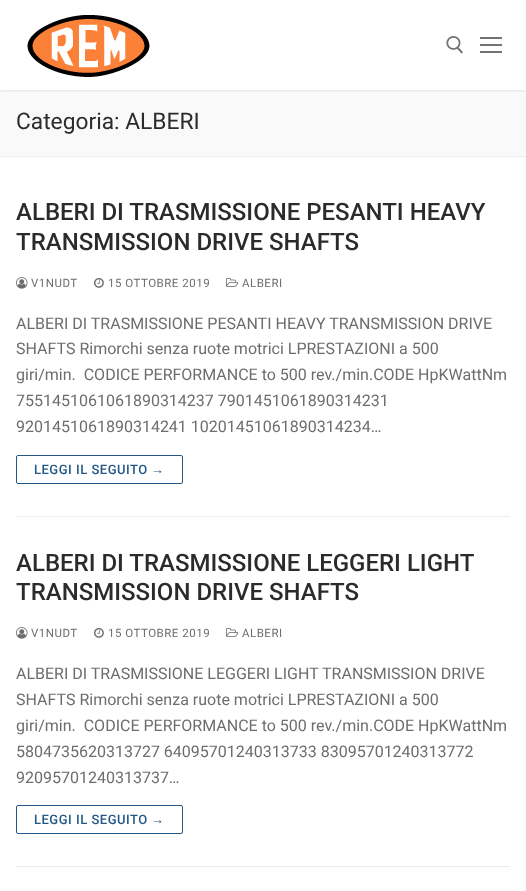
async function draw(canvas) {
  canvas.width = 526
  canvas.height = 891
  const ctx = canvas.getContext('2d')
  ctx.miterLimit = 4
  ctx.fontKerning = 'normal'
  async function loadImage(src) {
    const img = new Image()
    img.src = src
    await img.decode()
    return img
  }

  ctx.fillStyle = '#fff'
  ctx.fillRect(0, 0, 526, 891)
  ctx.fillStyle = '#f9f9f9'
  ctx.fillRect(0, 90, 526, 66)
  ctx.save()
  ctx.beginPath()
  ctx.rect(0, 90, 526, 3)
  ctx.clip()
  ctx.fillStyle = '#e1e5ea'
  ctx.filter = 'blur(1px)'
  ctx.beginPath()
  ctx.rect(0, 1, 526, 90)
  ctx.fill()
  ctx.filter = 'none'
  ctx.restore()
  ctx.drawImage(await loadImage('image0.png'), 27, 15, 123, 62)
  ctx.drawImage(await loadImage('image1.png'), 446, 36, 17, 18)
  ctx.fillStyle = '#737373'
  ctx.fillRect(480, 44, 22, 2)
  ctx.fillRect(480, 37, 22, 2)
  ctx.fillRect(480, 51, 22, 2)
  ctx.fillStyle = '#eaecee'
  ctx.fillRect(0, 156, 526, 1)
  ctx.font = '22.75px Roboto'
  ctx.fillStyle = '#2b2b2b'
  ctx.fillText('Categoria: ALBERI', 16, 129)
  ctx.fillStyle = '#eaecee'
  ctx.fillRect(16, 516, 494, 1)
  ctx.font = '500 24px Roboto'
  ctx.fillStyle = '#2b2b2b'
  ctx.fillText('ALBERI DI TRASMISSIONE PESANTI HEAVY', 16, 220)
  ctx.fillText('TRANSMISSION DRIVE SHAFTS', 16, 250)
  ctx.drawImage(await loadImage('image2.png'), 16, 277, 12, 12)
  ctx.letterSpacing = '0.5px'
  ctx.font = '11.5px Roboto'
  ctx.fillStyle = '#6d6d6d'
  ctx.fillText('V1NUDT', 31, 287)
  ctx.drawImage(await loadImage('image3.png'), 94, 278, 10, 10)
  ctx.fillText('15 OTTOBRE 2019', 108, 287)
  ctx.drawImage(await loadImage('image4.png'), 226, 277, 13, 10)
  ctx.fillText('ALBERI', 242, 287)
  ctx.letterSpacing = '0px'
  ctx.font = '16px Roboto'
  ctx.fillText('ALBERI DI TRASMISSIONE PESANTI HEAVY TRANSMISSION DRIVE', 16, 329)
  ctx.fillText('SHAFTS Rimorchi senza ruote motrici LPRESTAZIONI a 500', 16, 354)
  ctx.fillText('giri/min.  CODICE PERFORMANCE to 500 rev./min.CODE HpKWattNm', 16, 380)
  ctx.fillText('7551451061061890314237 7901451061890314231', 16, 406)
  ctx.fillText('9201451061890314241 10201451061890314234…', 16, 432)
  ctx.beginPath()
  ctx.roundRect(16.5, 455.5, 166, 28, 1.5)
  ctx.strokeStyle = '#235787'
  ctx.stroke()
  ctx.letterSpacing = '0.5px'
  ctx.font = '500 13px Roboto'
  ctx.fillStyle = '#235787'
  ctx.fillText('LEGGI IL SEGUITO', 34, 474)
  ctx.font = '13px Liberation Sans'
  ctx.fillText('→', 151, 474)
  ctx.fillStyle = '#eaecee'
  ctx.fillRect(16, 866, 494, 1)
  ctx.letterSpacing = '0px'
  ctx.font = '500 24px Roboto'
  ctx.fillStyle = '#2b2b2b'
  ctx.fillText('ALBERI DI TRASMISSIONE LEGGERI LIGHT', 16, 571)
  ctx.fillText('TRANSMISSION DRIVE SHAFTS', 16, 600)
  ctx.drawImage(await loadImage('image2.png'), 16, 627, 12, 12)
  ctx.letterSpacing = '0.5px'
  ctx.font = '11.5px Roboto'
  ctx.fillStyle = '#6d6d6d'
  ctx.fillText('V1NUDT', 31, 637)
  ctx.drawImage(await loadImage('image3.png'), 94, 628, 10, 10)
  ctx.fillText('15 OTTOBRE 2019', 108, 637)
  ctx.drawImage(await loadImage('image4.png'), 226, 627, 13, 10)
  ctx.fillText('ALBERI', 242, 637)
  ctx.letterSpacing = '0px'
  ctx.font = '16px Roboto'
  ctx.fillText('ALBERI DI TRASMISSIONE LEGGERI LIGHT TRANSMISSION DRIVE', 16, 679)
  ctx.fillText('SHAFTS Rimorchi senza ruote motrici LPRESTAZIONI a 500', 16, 705)
  ctx.fillText('giri/min.  CODICE PERFORMANCE to 500 rev./min.CODE HpKWattNm', 16, 731)
  ctx.fillText('5804735620313727 64095701240313733 83095701240313772', 16, 757)
  ctx.fillText('92095701240313737…', 16, 783)
  ctx.beginPath()
  ctx.roundRect(16.5, 805.5, 166, 28, 1.5)
  ctx.stroke()
  ctx.letterSpacing = '0.5px'
  ctx.font = '500 13px Roboto'
  ctx.fillStyle = '#235787'
  ctx.fillText('LEGGI IL SEGUITO', 34, 824)
  ctx.font = '13px Liberation Sans'
  ctx.fillText('→', 151, 824)
}

draw(document.querySelector('canvas'))
